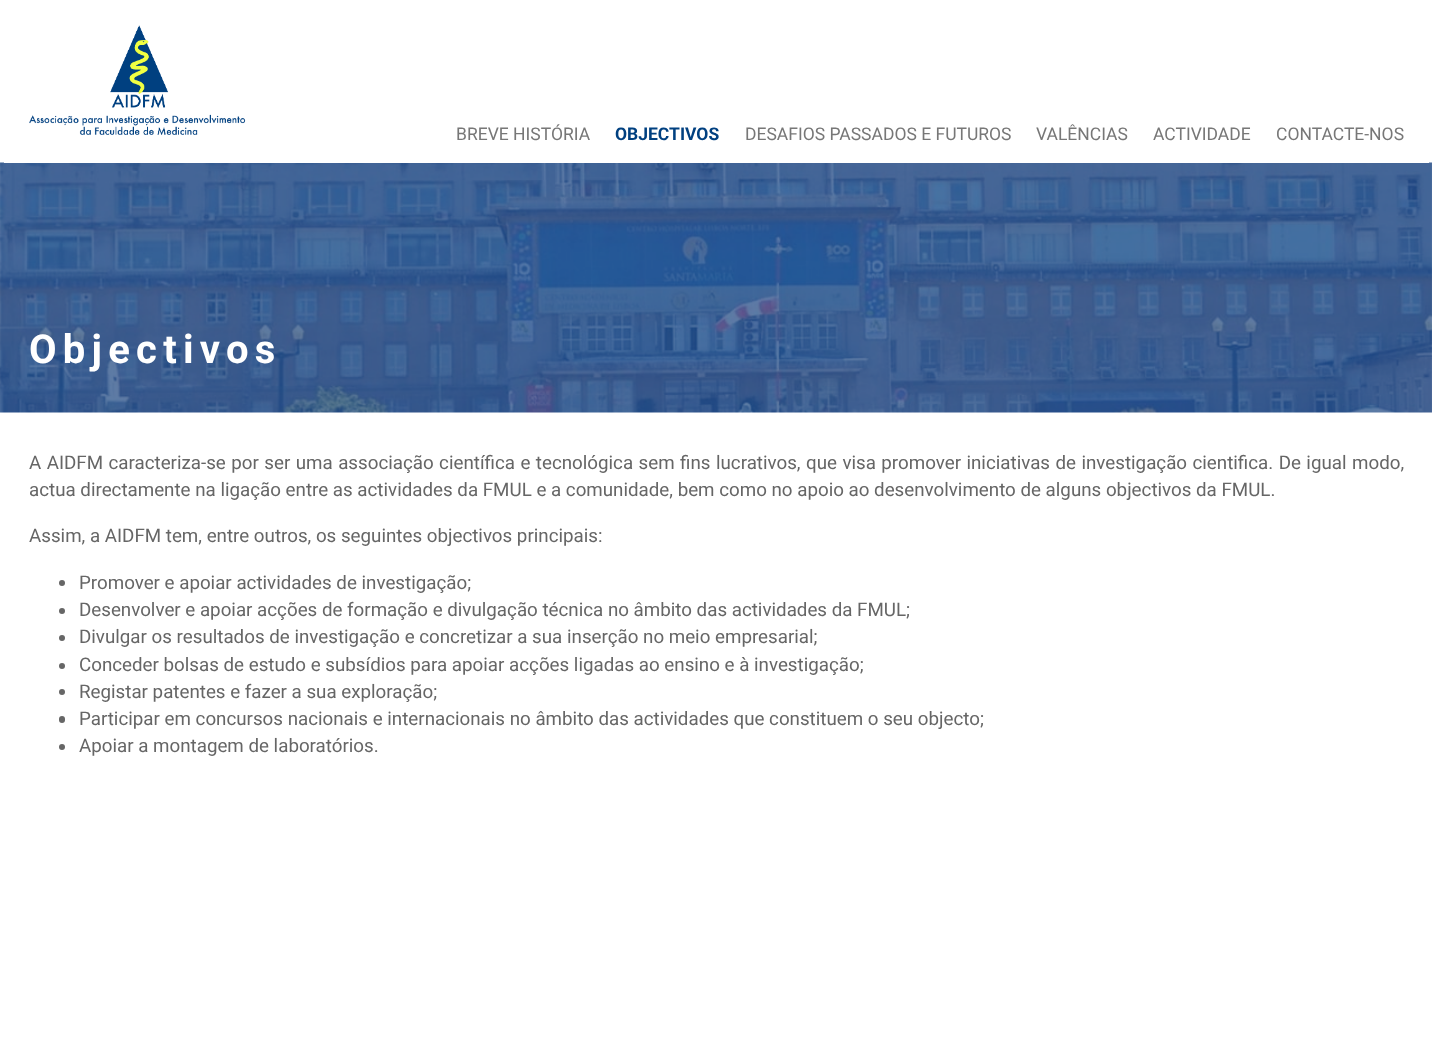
async function draw(canvas) {
  canvas.width = 1432
  canvas.height = 1062
  const ctx = canvas.getContext('2d')
  ctx.miterLimit = 4
  ctx.fontKerning = 'normal'
  async function loadImage(src) {
    const img = new Image()
    img.src = src
    await img.decode()
    return img
  }

  ctx.fillStyle = '#fff'
  ctx.fillRect(0, 0, 1432, 1062)
  ctx.drawImage(await loadImage('image1.png'), 0, 162, 1432, 251)
  ctx.fillRect(4, 162, 1425, 1)
  ctx.drawImage(await loadImage('image0.png'), 29, 25, 217, 110)
  ctx.font = '17.5px Roboto'
  ctx.fillStyle = '#777'
  ctx.fillText('BREVE HISTÓRIA', 456, 140)
  ctx.font = 'bold 17.5px Roboto'
  ctx.fillStyle = '#004080'
  ctx.fillText('OBJECTIVOS', 615, 140)
  ctx.font = '17.5px Roboto'
  ctx.fillStyle = '#777'
  ctx.fillText('DESAFIOS PASSADOS E FUTUROS', 745, 140)
  ctx.fillText('VALÊNCIAS', 1036, 140)
  ctx.fillText('ACTIVIDADE', 1153, 140)
  ctx.fillText('CONTACTE-NOS', 1276, 140)
  ctx.letterSpacing = '6.25px'
  ctx.font = 'bold 40px Roboto'
  ctx.fillStyle = '#fff'
  ctx.fillText('Objectivos', 29, 363)
  ctx.letterSpacing = '0px'
  ctx.wordSpacing = '0.8px'
  ctx.font = '18.75px Roboto'
  ctx.fillStyle = '#666'
  ctx.fillText('A AIDFM caracteriza-se por ser uma associação científica e tecnológica sem fins lucrativos, que visa promover iniciativas de investigação cientifica. De igual modo,', 29, 469)
  ctx.wordSpacing = '0px'
  ctx.fillText('actua directamente na ligação entre as actividades da FMUL e a comunidade, bem como no apoio ao desenvolvimento de alguns objectivos da FMUL.', 29, 496)
  ctx.fillText('Assim, a AIDFM tem, entre outros, os seguintes objectivos principais:', 29, 542)
  ctx.beginPath()
  ctx.arc(62, 583, 3, 0, 2 * Math.PI)
  ctx.fill()
  ctx.fillText('Promover e apoiar actividades de investigação;', 79, 589)
  ctx.beginPath()
  ctx.arc(62, 611, 3, 0, 2 * Math.PI)
  ctx.fill()
  ctx.fillText('Desenvolver e apoiar acções de formação e divulgação técnica no âmbito das actividades da FMUL;', 79, 616)
  ctx.beginPath()
  ctx.arc(62, 638, 3, 0, 2 * Math.PI)
  ctx.fill()
  ctx.fillText('Divulgar os resultados de investigação e concretizar a sua inserção no meio empresarial;', 79, 643)
  ctx.beginPath()
  ctx.arc(62, 666, 3, 0, 2 * Math.PI)
  ctx.fill()
  ctx.fillText('Conceder bolsas de estudo e subsídios para apoiar acções ligadas ao ensino e à investigação;', 79, 671)
  ctx.beginPath()
  ctx.arc(62, 692, 3, 0, 2 * Math.PI)
  ctx.fill()
  ctx.fillText('Registar patentes e fazer a sua exploração;', 79, 698)
  ctx.beginPath()
  ctx.roundRect(59, 716, 6, 7, 3)
  ctx.fill()
  ctx.fillText('Participar em concursos nacionais e internacionais no âmbito das actividades que constituem o seu objecto;', 79, 725)
  ctx.beginPath()
  ctx.arc(62, 747, 3, 0, 2 * Math.PI)
  ctx.fill()
  ctx.fillText('Apoiar a montagem de laboratórios.', 79, 752)
}

draw(document.querySelector('canvas'))
